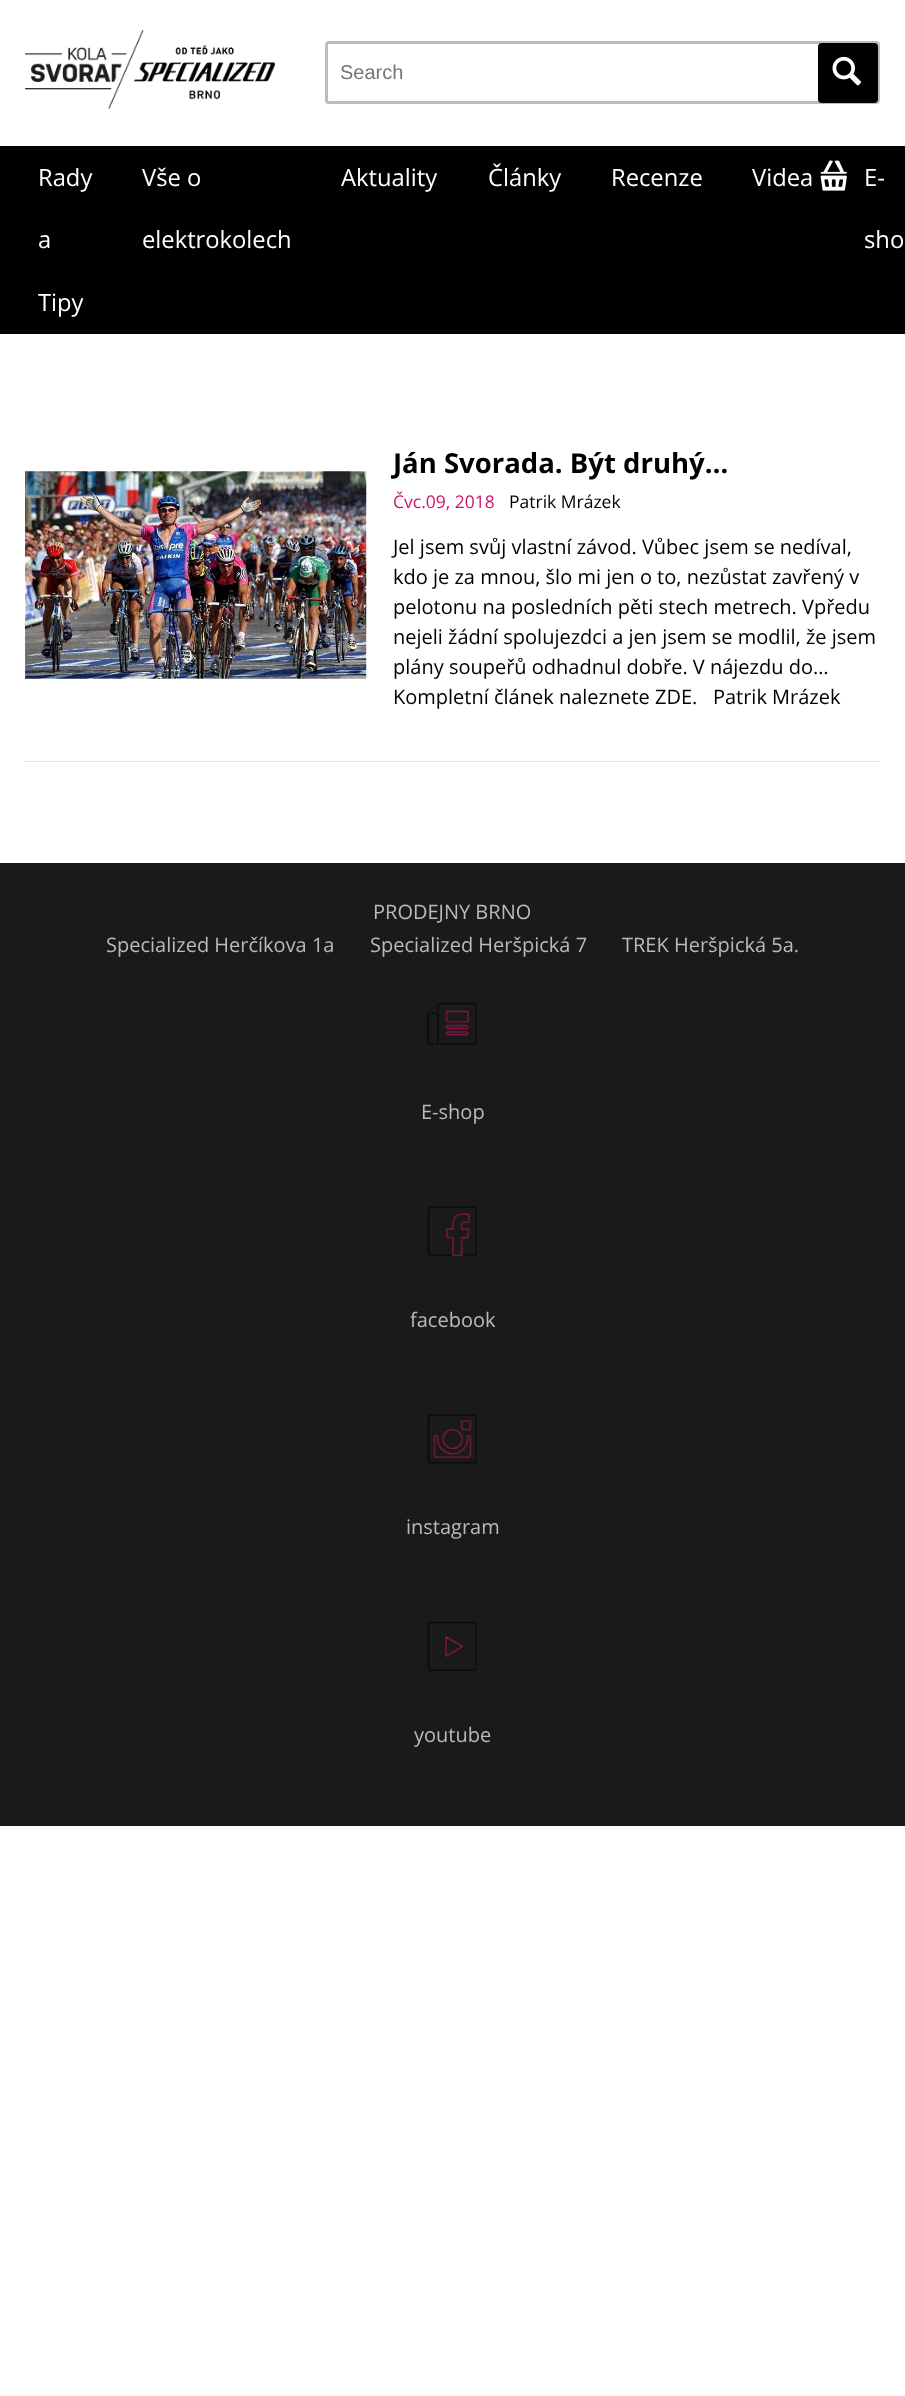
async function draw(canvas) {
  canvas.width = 905
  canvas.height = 2396
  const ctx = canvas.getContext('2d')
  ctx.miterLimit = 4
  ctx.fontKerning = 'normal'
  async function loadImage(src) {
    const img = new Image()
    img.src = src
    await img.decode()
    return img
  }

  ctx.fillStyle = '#fff'
  ctx.fillRect(0, 0, 905, 2396)
  ctx.drawImage(await loadImage('image0.png'), 25, 30, 250, 79)
  ctx.beginPath()
  ctx.roundRect(326.5, 42.5, 552, 60, 2.5)
  ctx.strokeStyle = '#bcbcbc'
  ctx.lineWidth = 3
  ctx.stroke()
  ctx.font = '20px Liberation Sans'
  ctx.fillStyle = '#757575'
  ctx.fillText('Search', 340, 79)
  ctx.fillStyle = '#000'
  ctx.beginPath()
  ctx.roundRect(818, 43, 60, 60, 4)
  ctx.fill()
  ctx.drawImage(await loadImage('image1.png'), 832, 56, 29, 30)
  ctx.fillRect(0, 146, 905, 188)
  ctx.font = '23.75px Open Sans'
  ctx.fillStyle = '#fff'
  ctx.fillText('Rady', 38, 186)
  ctx.fillText('a', 38, 248)
  ctx.fillText('Tipy', 38, 311)
  ctx.fillText('Vše o', 142, 186)
  ctx.fillText('elektrokolech', 142, 248)
  ctx.fillText('Aktuality', 341, 186)
  ctx.fillText('Články', 488, 186)
  ctx.fillText('Recenze', 611, 186)
  ctx.fillText('Videa', 752, 186)
  ctx.drawImage(await loadImage('image2.png'), 820, 160, 27, 31)
  ctx.fillText('E-', 864, 186)
  ctx.fillText('sho', 864, 248)
  ctx.fillStyle = '#e2e2e2'
  ctx.fillRect(25, 761, 855, 1)
  ctx.drawImage(await loadImage('image3.png'), 25, 471, 342, 208)
  ctx.font = 'bold 27.5px Open Sans'
  ctx.fillStyle = '#000'
  ctx.fillText('Ján Svorada. Být druhý…', 393, 473)
  ctx.font = '17.5px Open Sans'
  ctx.fillStyle = '#cf146c'
  ctx.fillText('Čvc.09, 2018', 393, 508)
  ctx.fillStyle = '#000'
  ctx.fillText('Patrik Mrázek', 509, 508)
  ctx.font = '20px Open Sans'
  ctx.fillText('Jel jsem svůj vlastní závod. Vůbec jsem se nedíval,', 393, 554)
  ctx.fillText('kdo je za mnou, šlo mi jen o to, nezůstat zavřený v', 393, 584)
  ctx.fillText('pelotonu na posledních pěti stech metrech. Vpředu', 393, 614)
  ctx.fillText('nejeli žádní spolujezdci a jen jsem se modlil, že jsem', 393, 644)
  ctx.fillText('plány soupeřů odhadnul dobře. V nájezdu do…', 393, 674)
  ctx.fillText('Kompletní článek naleznete ZDE.   Patrik Mrázek', 393, 704)
  ctx.fillStyle = '#1a1a18'
  ctx.fillRect(0, 863, 905, 963)
  ctx.fillStyle = '#bababa'
  ctx.fillText('PRODEJNY BRNO', 373, 919)
  ctx.fillText('Specialized Herčíkova 1a', 106, 952)
  ctx.fillText('Specialized Heršpická 7', 370, 952)
  ctx.fillText('TREK Heršpická 5a.', 622, 952)
  ctx.drawImage(await loadImage('image4.png'), 427, 1002, 50, 43)
  ctx.fillText('E-shop', 421, 1119)
  ctx.drawImage(await loadImage('image5.png'), 427, 1206, 50, 50)
  ctx.fillText('facebook', 410, 1327)
  ctx.drawImage(await loadImage('image6.png'), 427, 1414, 50, 50)
  ctx.fillText('instagram', 406, 1534)
  ctx.drawImage(await loadImage('image7.png'), 427, 1621, 50, 50)
  ctx.fillText('youtube', 414, 1742)
}

draw(document.querySelector('canvas'))
